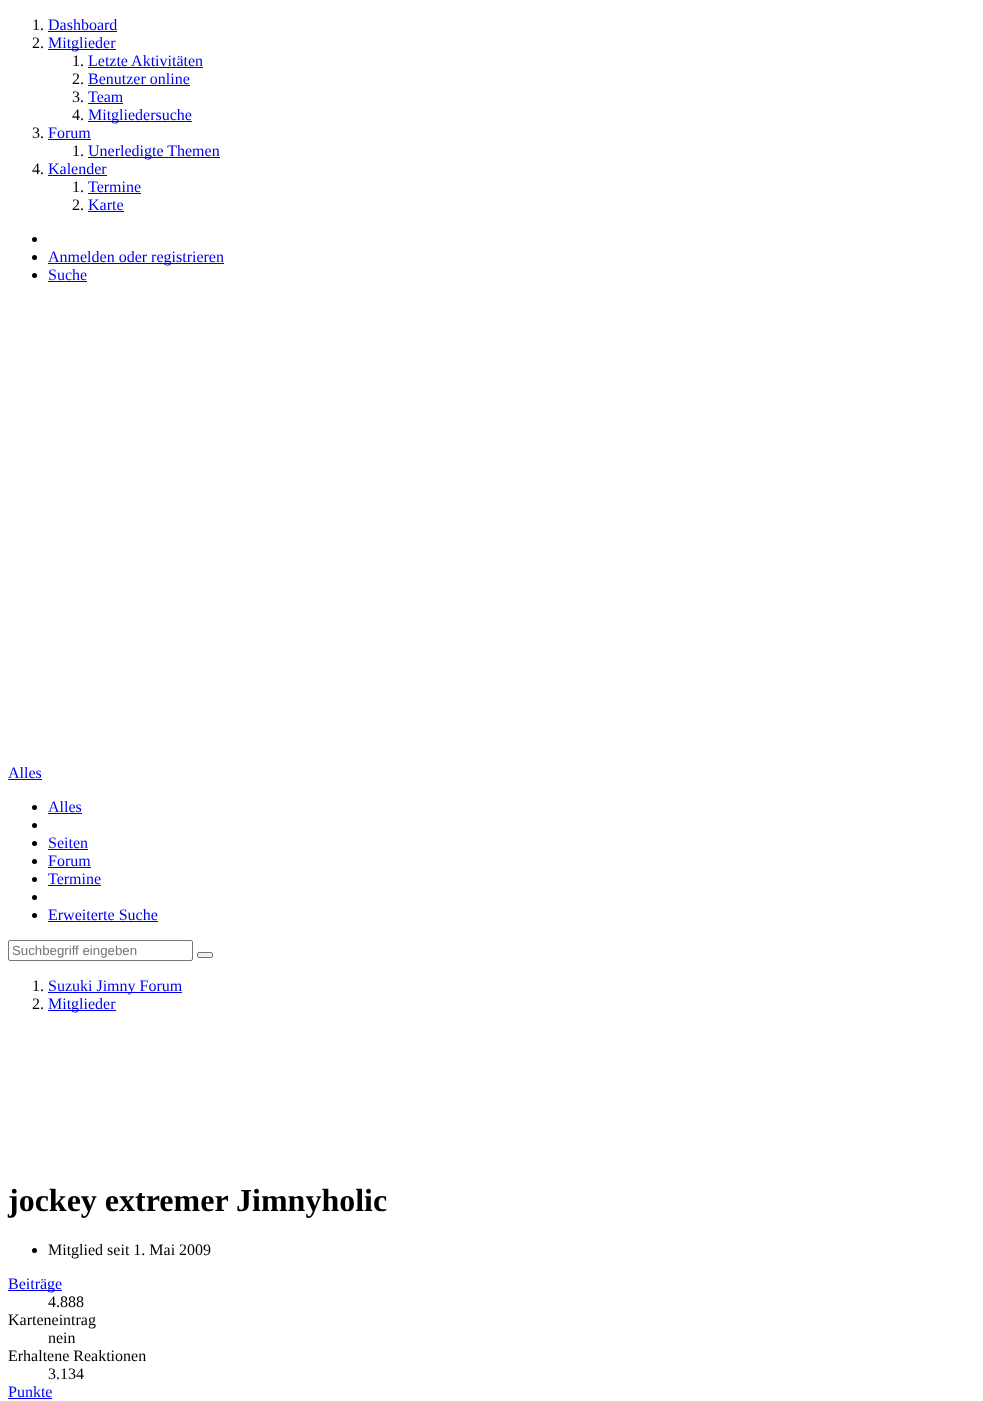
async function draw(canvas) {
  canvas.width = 983
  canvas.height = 1401
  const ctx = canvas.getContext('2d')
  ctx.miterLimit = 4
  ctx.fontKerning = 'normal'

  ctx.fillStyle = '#fff'
  ctx.fillRect(0, 0, 983, 1401)
  ctx.font = '16px Liberation Serif'
  ctx.fillStyle = '#000'
  ctx.fillText('1.', 32, 30)
  ctx.fillStyle = '#00e'
  ctx.fillText('Dashboard', 48, 30)
  ctx.fillRect(48, 31, 69, 1)
  ctx.fillStyle = '#000'
  ctx.fillText('2.', 32, 48)
  ctx.fillStyle = '#00e'
  ctx.fillRect(48, 49, 68, 1)
  ctx.fillText('Mitglieder', 48, 48)
  ctx.fillStyle = '#000'
  ctx.fillText('1.', 72, 66)
  ctx.fillStyle = '#00e'
  ctx.fillText('Letzte Aktivitäten', 88, 66)
  ctx.fillRect(88, 67, 115, 1)
  ctx.fillStyle = '#000'
  ctx.fillText('2.', 72, 84)
  ctx.fillStyle = '#00e'
  ctx.fillText('Benutzer online', 88, 84)
  ctx.fillRect(88, 85, 102, 1)
  ctx.fillStyle = '#000'
  ctx.fillText('3.', 72, 102)
  ctx.fillStyle = '#00e'
  ctx.fillText('Team', 88, 102)
  ctx.fillRect(88, 103, 35, 1)
  ctx.fillStyle = '#000'
  ctx.fillText('4.', 72, 120)
  ctx.fillStyle = '#00e'
  ctx.fillRect(88, 121, 104, 1)
  ctx.fillText('Mitgliedersuche', 88, 120)
  ctx.fillStyle = '#000'
  ctx.fillText('3.', 32, 138)
  ctx.fillStyle = '#00e'
  ctx.fillText('Forum', 48, 138)
  ctx.fillRect(48, 139, 43, 1)
  ctx.fillStyle = '#000'
  ctx.fillText('1.', 72, 156)
  ctx.fillStyle = '#00e'
  ctx.fillRect(88, 157, 132, 1)
  ctx.fillText('Unerledigte Themen', 88, 156)
  ctx.fillStyle = '#000'
  ctx.fillText('4.', 32, 174)
  ctx.fillStyle = '#00e'
  ctx.fillText('Kalender', 48, 174)
  ctx.fillRect(48, 175, 59, 1)
  ctx.fillStyle = '#000'
  ctx.fillText('1.', 72, 192)
  ctx.fillStyle = '#00e'
  ctx.fillText('Termine', 88, 192)
  ctx.fillRect(88, 193, 53, 1)
  ctx.fillStyle = '#000'
  ctx.fillText('2.', 72, 210)
  ctx.fillStyle = '#00e'
  ctx.fillText('Karte', 88, 210)
  ctx.fillRect(88, 211, 36, 1)
  ctx.fillStyle = '#000'
  ctx.beginPath()
  ctx.arc(34.5, 239.5, 2.5, 0, 2 * Math.PI)
  ctx.fill()
  ctx.beginPath()
  ctx.arc(34.5, 257.5, 2.5, 0, 2 * Math.PI)
  ctx.fill()
  ctx.fillStyle = '#00e'
  ctx.fillRect(48, 263, 176, 1)
  ctx.fillText('Anmelden oder registrieren', 48, 262)
  ctx.fillStyle = '#000'
  ctx.beginPath()
  ctx.arc(34.5, 275.5, 2.5, 0, 2 * Math.PI)
  ctx.fill()
  ctx.fillStyle = '#00e'
  ctx.fillText('Suche', 48, 280)
  ctx.fillRect(48, 281, 39, 1)
  ctx.fillText('Alles', 8, 778)
  ctx.fillRect(8, 779, 34, 1)
  ctx.fillStyle = '#000'
  ctx.beginPath()
  ctx.arc(34.5, 807.5, 2.5, 0, 2 * Math.PI)
  ctx.fill()
  ctx.fillStyle = '#00e'
  ctx.fillText('Alles', 48, 812)
  ctx.fillRect(48, 813, 34, 1)
  ctx.fillStyle = '#000'
  ctx.beginPath()
  ctx.arc(34.5, 825.5, 2.5, 0, 2 * Math.PI)
  ctx.fill()
  ctx.beginPath()
  ctx.arc(34.5, 843.5, 2.5, 0, 2 * Math.PI)
  ctx.fill()
  ctx.fillStyle = '#00e'
  ctx.fillText('Seiten', 48, 848)
  ctx.fillRect(48, 849, 40, 1)
  ctx.fillStyle = '#000'
  ctx.beginPath()
  ctx.arc(34.5, 861.5, 2.5, 0, 2 * Math.PI)
  ctx.fill()
  ctx.fillStyle = '#00e'
  ctx.fillText('Forum', 48, 866)
  ctx.fillRect(48, 867, 43, 1)
  ctx.fillStyle = '#000'
  ctx.beginPath()
  ctx.arc(34.5, 879.5, 2.5, 0, 2 * Math.PI)
  ctx.fill()
  ctx.fillStyle = '#00e'
  ctx.fillText('Termine', 48, 884)
  ctx.fillRect(48, 885, 53, 1)
  ctx.fillStyle = '#000'
  ctx.beginPath()
  ctx.arc(34.5, 897.5, 2.5, 0, 2 * Math.PI)
  ctx.fill()
  ctx.beginPath()
  ctx.arc(34.5, 915.5, 2.5, 0, 2 * Math.PI)
  ctx.fill()
  ctx.fillStyle = '#00e'
  ctx.fillText('Erweiterte Suche', 48, 920)
  ctx.fillRect(48, 921, 110, 1)
  ctx.beginPath()
  ctx.roundRect(8.5, 940.5, 184, 20, 1.5)
  ctx.strokeStyle = '#767676'
  ctx.stroke()
  ctx.font = '13.25px Liberation Sans'
  ctx.fillStyle = '#757575'
  ctx.fillText('Suchbegriff eingeben', 12, 955)
  ctx.fillStyle = '#efefef'
  ctx.beginPath()
  ctx.roundRect(197.5, 952.5, 15, 5, 1.5)
  ctx.fill()
  ctx.stroke()
  ctx.font = '16px Liberation Serif'
  ctx.fillStyle = '#000'
  ctx.fillText('1.', 32, 991)
  ctx.fillStyle = '#00e'
  ctx.fillRect(48, 992, 134, 1)
  ctx.fillText('Suzuki Jimny Forum', 48, 991)
  ctx.fillStyle = '#000'
  ctx.fillText('2.', 32, 1009)
  ctx.fillStyle = '#00e'
  ctx.fillRect(48, 1010, 68, 1)
  ctx.fillText('Mitglieder', 48, 1009)
  ctx.font = 'bold 32px Liberation Serif'
  ctx.fillStyle = '#000'
  ctx.fillText('jockey extremer Jimnyholic', 8, 1211)
  ctx.beginPath()
  ctx.arc(34.5, 1250.5, 2.5, 0, 2 * Math.PI)
  ctx.fill()
  ctx.font = '16px Liberation Serif'
  ctx.fillText('Mitglied seit 1. Mai 2009', 48, 1255)
  ctx.fillStyle = '#00e'
  ctx.fillRect(8, 1290, 54, 1)
  ctx.fillText('Beiträge', 8, 1289)
  ctx.fillStyle = '#000'
  ctx.fillText('4.888', 48, 1307)
  ctx.fillText('Karteneintrag', 8, 1325)
  ctx.fillText('nein', 48, 1343)
  ctx.fillText('Erhaltene Reaktionen', 8, 1361)
  ctx.fillText('3.134', 48, 1379)
  ctx.fillStyle = '#00e'
  ctx.fillText('Punkte', 8, 1397)
  ctx.fillRect(8, 1398, 44, 1)
}

draw(document.querySelector('canvas'))
